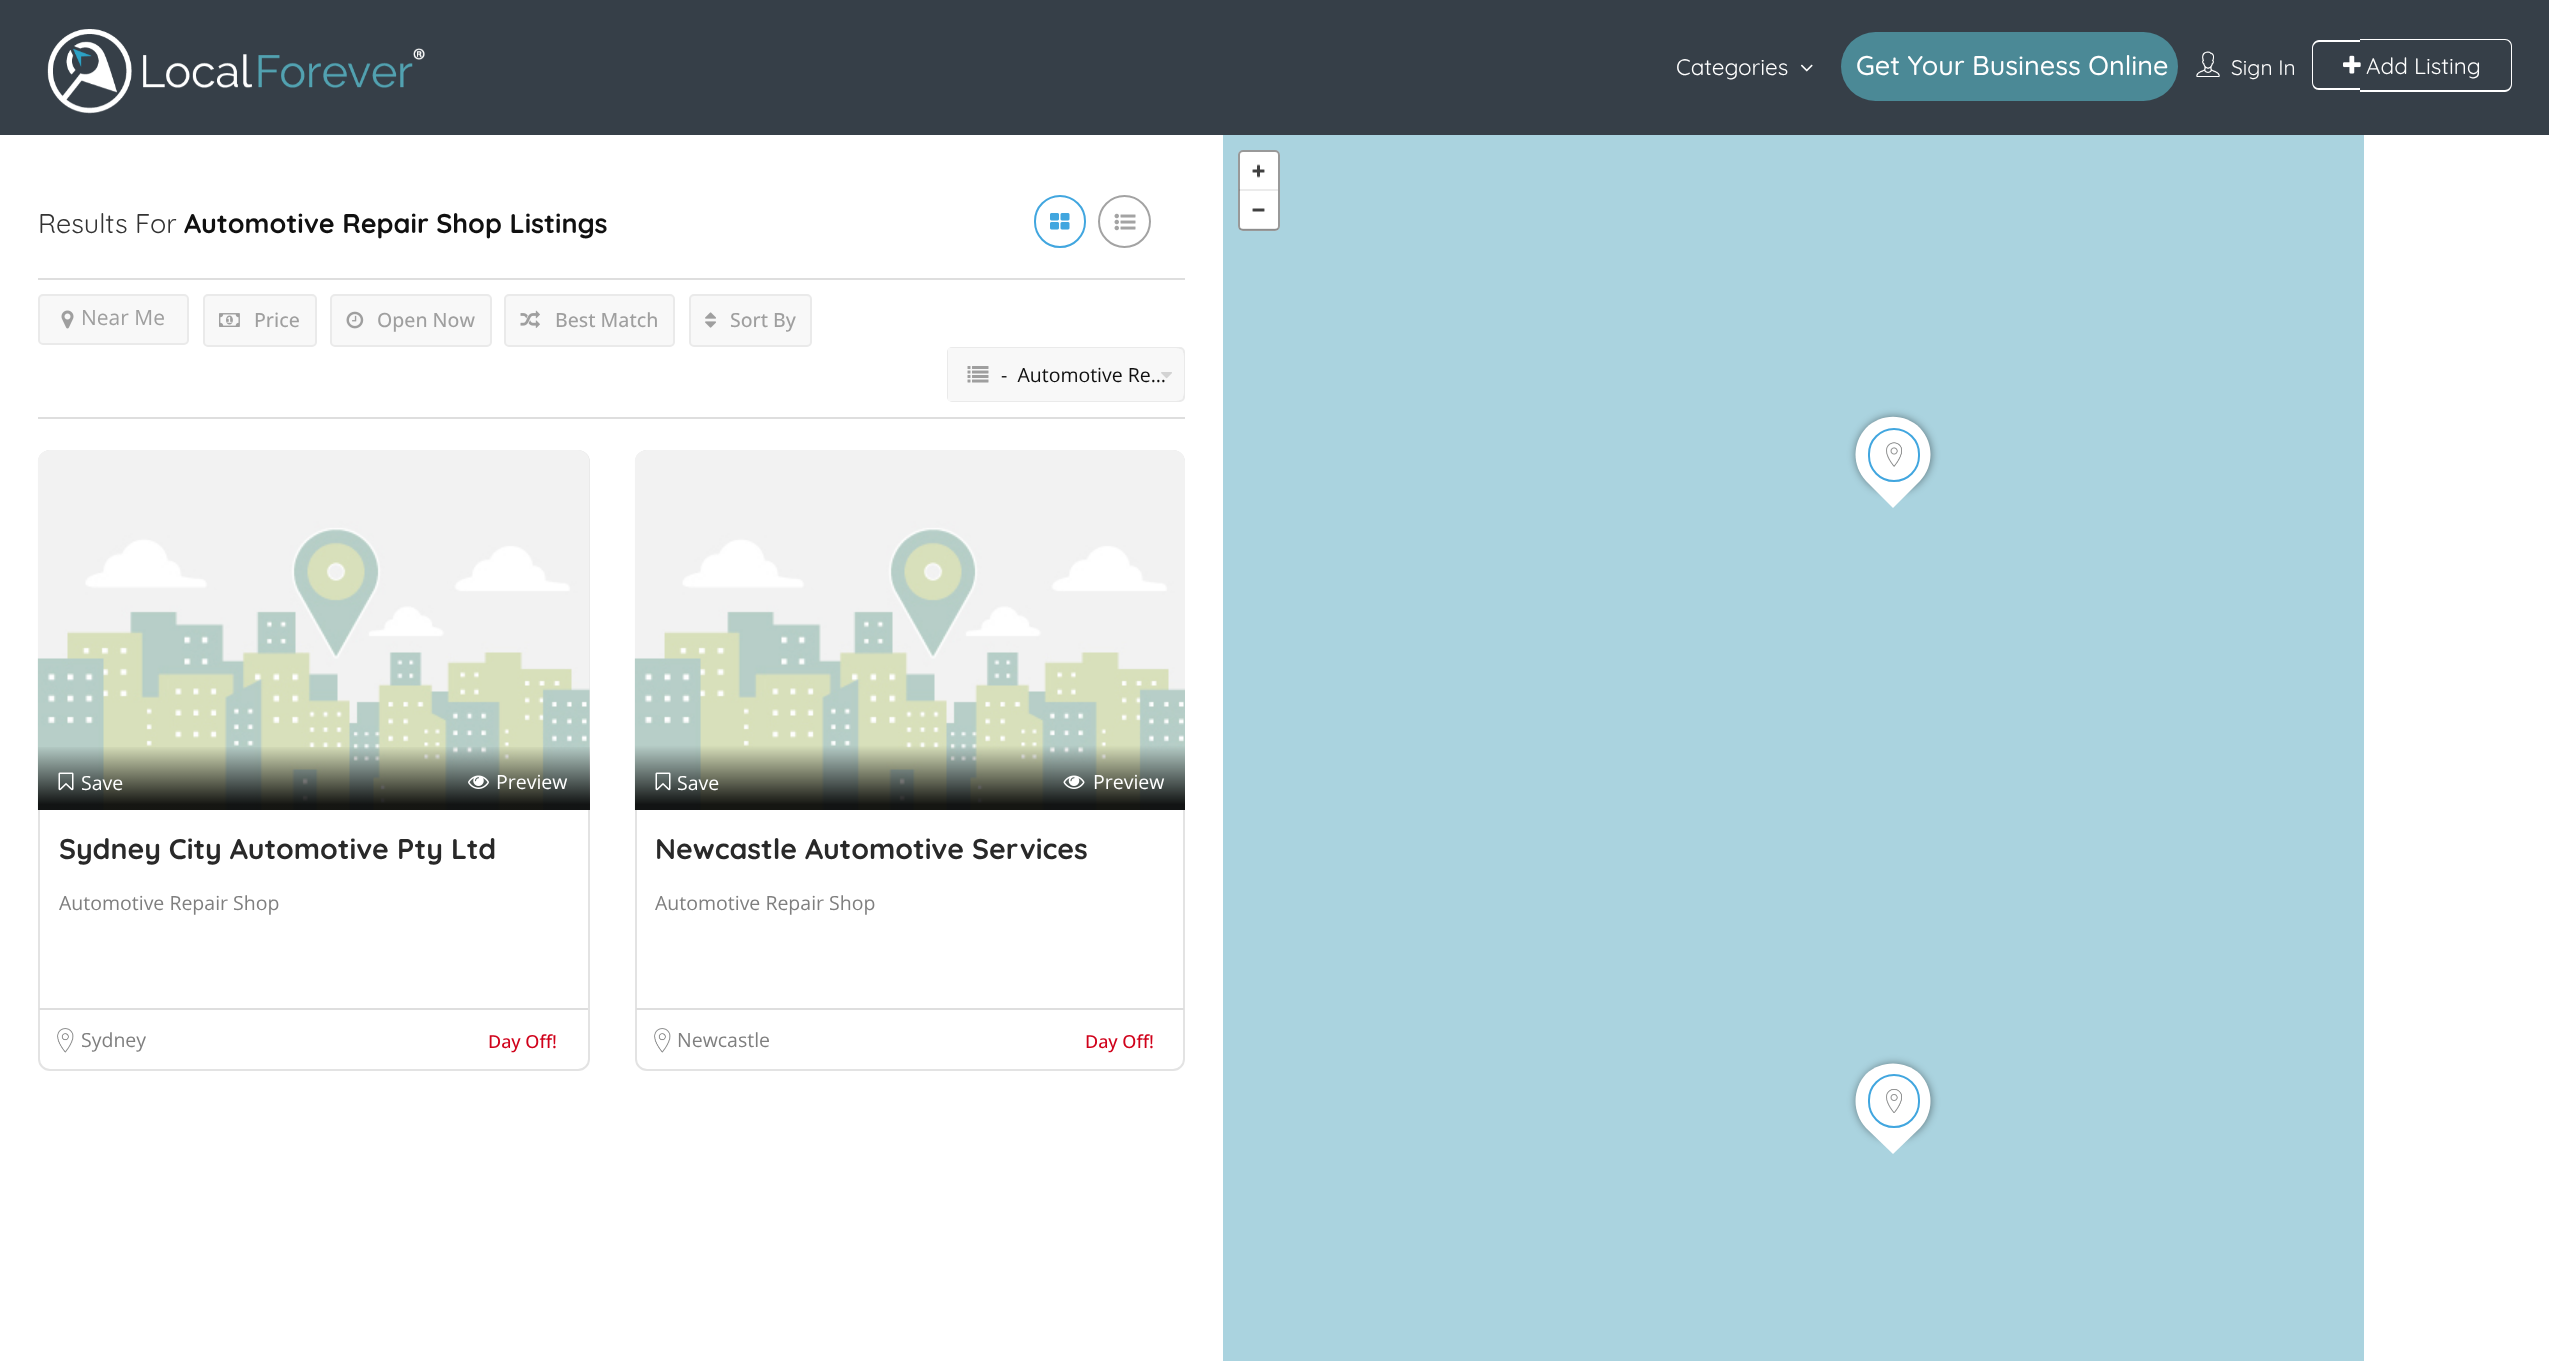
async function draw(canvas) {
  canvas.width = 2549
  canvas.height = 1361
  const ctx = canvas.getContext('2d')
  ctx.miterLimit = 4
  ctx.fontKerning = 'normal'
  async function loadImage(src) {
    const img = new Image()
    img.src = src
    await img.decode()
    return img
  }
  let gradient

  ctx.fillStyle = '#fff'
  ctx.fillRect(0, 0, 2549, 1361)
  ctx.fillStyle = '#363f48'
  ctx.fillRect(0, 0, 2549, 135)
  ctx.drawImage(await loadImage('image0.png'), 47, 29, 378, 85)
  ctx.font = '22.5px Quicksand'
  ctx.fillStyle = '#fff'
  ctx.fillText('Categories', 1676, 75)
  ctx.drawImage(await loadImage('image1.png'), 1800, 64, 13, 8)
  ctx.fillStyle = '#4b8996'
  ctx.beginPath()
  ctx.roundRect(1841, 32, 337, 69, 34.5)
  ctx.fill()
  ctx.font = '500 27px Quicksand'
  ctx.fillStyle = '#fff'
  ctx.fillText('Get Your Business Online', 1856, 75)
  ctx.drawImage(await loadImage('image2.png'), 2196, 51, 24, 26)
  ctx.font = '21px Quicksand'
  ctx.fillText('Sign In', 2231, 75)
  ctx.beginPath()
  ctx.moveTo(2319, 40)
  ctx.lineTo(2360, 40)
  ctx.lineTo(2360, 90)
  ctx.lineTo(2319, 90)
  ctx.bezierCurveTo(2315, 90, 2312, 87, 2312, 82)
  ctx.lineTo(2312, 48)
  ctx.bezierCurveTo(2312, 44, 2315, 40, 2319, 40)
  ctx.closePath()
  ctx.moveTo(2319, 42)
  ctx.lineTo(2360, 42)
  ctx.lineTo(2360, 88)
  ctx.lineTo(2319, 88)
  ctx.bezierCurveTo(2316, 88, 2313, 86, 2313, 82)
  ctx.lineTo(2313, 48)
  ctx.bezierCurveTo(2313, 45, 2316, 42, 2319, 42)
  ctx.closePath()
  ctx.fill('evenodd')
  ctx.beginPath()
  ctx.moveTo(2360, 39)
  ctx.lineTo(2505, 39)
  ctx.bezierCurveTo(2509, 39, 2512, 42, 2512, 46)
  ctx.lineTo(2512, 84)
  ctx.bezierCurveTo(2512, 88, 2509, 92, 2505, 92)
  ctx.lineTo(2360, 92)
  ctx.closePath()
  ctx.moveTo(2360, 40)
  ctx.lineTo(2505, 40)
  ctx.bezierCurveTo(2508, 40, 2511, 43, 2511, 46)
  ctx.lineTo(2511, 84)
  ctx.bezierCurveTo(2511, 87, 2508, 90, 2505, 90)
  ctx.lineTo(2360, 90)
  ctx.closePath()
  ctx.fill('evenodd')
  ctx.drawImage(await loadImage('image3.png'), 2343, 55, 18, 19)
  ctx.font = '22.5px Quicksand'
  ctx.fillText('Add Listing', 2366, 74)
  ctx.font = '27px Quicksand'
  ctx.fillStyle = '#333'
  ctx.fillText('Results For', 38, 233)
  ctx.font = 'bold 27px Quicksand'
  ctx.fillStyle = '#101010'
  ctx.fillText('Automotive Repair Shop Listings', 184, 233)
  ctx.beginPath()
  ctx.roundRect(1035, 196, 50, 51, 25)
  ctx.strokeStyle = '#41a6df'
  ctx.lineWidth = 2
  ctx.stroke()
  ctx.drawImage(await loadImage('image4.png'), 1050, 213, 20, 17)
  ctx.beginPath()
  ctx.arc(1124.5, 221.5, 25.5, 0, 2 * Math.PI)
  ctx.strokeStyle = '#a3a3a3'
  ctx.stroke()
  ctx.drawImage(await loadImage('image5.png'), 1114, 213, 22, 18)
  ctx.fillStyle = '#dedede'
  ctx.fillRect(38, 278, 1147, 2)
  ctx.fillRect(38, 417, 1147, 2)
  ctx.fillStyle = '#f8f8f8'
  ctx.beginPath()
  ctx.roundRect(39, 295, 149, 49, 4)
  ctx.fill()
  ctx.strokeStyle = '#eaeaea'
  ctx.stroke()
  ctx.drawImage(await loadImage('image6.png'), 61, 310, 13, 19)
  ctx.font = '21px Open Sans'
  ctx.fillStyle = '#9f9f9f'
  ctx.fillText('Near Me', 81, 325)
  ctx.fillStyle = '#f8f8f8'
  ctx.beginPath()
  ctx.roundRect(204, 295, 112, 51, 4)
  ctx.fill()
  ctx.stroke()
  ctx.drawImage(await loadImage('image7.png'), 219, 313, 21, 14)
  ctx.font = '500 19.5px Open Sans'
  ctx.fillStyle = '#9f9f9f'
  ctx.fillText('Price', 254, 327)
  ctx.fillStyle = '#f8f8f8'
  ctx.beginPath()
  ctx.roundRect(331, 295, 160, 51, 4)
  ctx.fill()
  ctx.stroke()
  ctx.drawImage(await loadImage('image8.png'), 346, 311, 18, 18)
  ctx.fillStyle = '#9f9f9f'
  ctx.fillText('Open Now', 377, 327)
  ctx.fillStyle = '#f8f8f8'
  ctx.beginPath()
  ctx.roundRect(505, 295, 169, 51, 4)
  ctx.fill()
  ctx.stroke()
  ctx.drawImage(await loadImage('image9.png'), 520, 310, 20, 18)
  ctx.fillStyle = '#9f9f9f'
  ctx.fillText('Best Match', 555, 327)
  ctx.fillStyle = '#f8f8f8'
  ctx.beginPath()
  ctx.roundRect(690, 295, 121, 51, 4)
  ctx.fill()
  ctx.stroke()
  ctx.drawImage(await loadImage('image10.png'), 705, 312, 11, 16)
  ctx.fillStyle = '#9f9f9f'
  ctx.fillText('Sort By', 730, 327)
  ctx.fillStyle = '#f8f8f8'
  ctx.beginPath()
  ctx.roundRect(948, 348, 236, 53, 4)
  ctx.fill()
  ctx.stroke()
  ctx.fillRect(948, 348, 41, 53)
  ctx.drawImage(await loadImage('image11.png'), 967, 366, 22, 17)
  ctx.beginPath()
  ctx.roundRect(989, 348, 195, 53, [0, 8, 8, 0])
  ctx.fill()
  ctx.font = '19.5px Open Sans'
  ctx.fillStyle = '#101010'
  ctx.fillText('-  Automotive Re…', 1001, 382)
  ctx.drawImage(await loadImage('image12.png'), 1161, 372, 11, 7)
  ctx.beginPath()
  ctx.roundRect(39, 451, 550, 619, 11)
  ctx.strokeStyle = '#e3e3e3'
  ctx.stroke()
  ctx.drawImage(await loadImage('image13.png'), 37, 450, 553, 360)
  gradient = ctx.createLinearGradient(314, 810, 314, 741)
  gradient.addColorStop(0.08, '#000000e6')
  gradient.addColorStop(0.94, '#00000000')
  ctx.fillStyle = gradient
  ctx.fillRect(38, 747, 552, 63)
  ctx.drawImage(await loadImage('image14.png'), 58, 772, 16, 19)
  ctx.fillStyle = '#fff'
  ctx.fillText('Save', 81, 790)
  ctx.drawImage(await loadImage('image15.png'), 468, 775, 21, 14)
  ctx.fillText('Preview', 496, 789)
  ctx.font = 'bold 28.5px Quicksand'
  ctx.fillStyle = '#292929'
  ctx.fillText('Sydney City Automotive Pty Ltd', 59, 859)
  ctx.font = '19.5px Open Sans'
  ctx.fillStyle = '#7f7f7f'
  ctx.fillText('Automotive Repair Shop', 59, 910)
  ctx.fillStyle = '#dedede'
  ctx.fillRect(39, 1008, 549, 2)
  ctx.drawImage(await loadImage('image16.png'), 57, 1028, 17, 25)
  ctx.fillStyle = '#7f7f7f'
  ctx.fillText('Sydney', 81, 1047)
  ctx.font = '500 18px Open Sans'
  ctx.fillStyle = '#d0021b'
  ctx.fillText('Day Off!', 488, 1048)
  ctx.beginPath()
  ctx.roundRect(636, 451, 548, 619, 11)
  ctx.stroke()
  ctx.drawImage(await loadImage('image17.png'), 634, 450, 551, 360)
  ctx.drawImage(await loadImage('image14.png'), 655, 772, 16, 19)
  ctx.font = '19.5px Open Sans'
  ctx.fillStyle = '#fff'
  ctx.fillText('Save', 677, 790)
  ctx.drawImage(await loadImage('image18.png'), 1063, 775, 22, 14)
  ctx.fillText('Preview', 1093, 789)
  ctx.font = 'bold 28.5px Quicksand'
  ctx.fillStyle = '#292929'
  ctx.fillText('Newcastle Automotive Services', 655, 859)
  ctx.font = '19.5px Open Sans'
  ctx.fillStyle = '#7f7f7f'
  ctx.fillText('Automotive Repair Shop', 655, 910)
  ctx.fillStyle = '#dedede'
  ctx.fillRect(636, 1008, 548, 2)
  ctx.drawImage(await loadImage('image16.png'), 654, 1028, 17, 25)
  ctx.fillStyle = '#7f7f7f'
  ctx.fillText('Newcastle', 677, 1047)
  ctx.font = '500 18px Open Sans'
  ctx.fillStyle = '#d0021b'
  ctx.fillText('Day Off!', 1085, 1048)
  ctx.fillStyle = '#aad3df'
  ctx.fillRect(1223, 135, 1141, 267)
  ctx.fillRect(1223, 402, 1141, 384)
  ctx.fillRect(1223, 786, 1141, 384)
  ctx.fillRect(1223, 1170, 1141, 191)
  ctx.fillStyle = '#00000078'
  ctx.filter = 'blur(4px)'
  ctx.beginPath()
  ctx.roundRect(1856, 417, 75, 75, 37.5)
  ctx.fill()
  ctx.filter = 'none'
  ctx.fillStyle = '#fff'
  ctx.beginPath()
  ctx.moveTo(1866, 428)
  ctx.bezierCurveTo(1881, 413, 1905, 413, 1920, 428)
  ctx.bezierCurveTo(1934, 443, 1934, 466, 1920, 481)
  ctx.lineTo(1893, 508)
  ctx.lineTo(1866, 481)
  ctx.bezierCurveTo(1852, 466, 1852, 443, 1866, 428)
  ctx.closePath()
  ctx.fill()
  ctx.beginPath()
  ctx.roundRect(1869, 429, 50, 52, 25)
  ctx.strokeStyle = '#41a6df'
  ctx.stroke()
  ctx.drawImage(await loadImage('image19.png'), 1886, 442, 16, 25)
  ctx.fillStyle = '#00000078'
  ctx.filter = 'blur(4px)'
  ctx.beginPath()
  ctx.roundRect(1856, 1064, 75, 75, 37.5)
  ctx.fill()
  ctx.filter = 'none'
  ctx.fillStyle = '#fff'
  ctx.beginPath()
  ctx.moveTo(1866, 1074)
  ctx.bezierCurveTo(1881, 1060, 1905, 1060, 1920, 1074)
  ctx.bezierCurveTo(1934, 1089, 1934, 1113, 1920, 1128)
  ctx.lineTo(1893, 1154)
  ctx.lineTo(1866, 1128)
  ctx.bezierCurveTo(1852, 1113, 1852, 1089, 1866, 1074)
  ctx.closePath()
  ctx.fill()
  ctx.beginPath()
  ctx.roundRect(1869, 1075, 50, 52, 25)
  ctx.stroke()
  ctx.drawImage(await loadImage('image20.png'), 1886, 1089, 16, 24)
  ctx.beginPath()
  ctx.roundRect(1238, 150, 42, 81, 5)
  ctx.fill()
  ctx.beginPath()
  ctx.roundRect(1239, 151, 40, 79, 4)
  ctx.strokeStyle = '#00000066'
  ctx.stroke()
  ctx.drawImage(await loadImage('image21.png'), 1252, 164, 13, 14)
  ctx.fillStyle = '#00000014'
  ctx.fillRect(1239, 189, 39, 2)
  ctx.drawImage(await loadImage('image22.png'), 1252, 208, 13, 4)
  ctx.fillRect(1239, 228, 39, 2)
}

draw(document.querySelector('canvas'))
